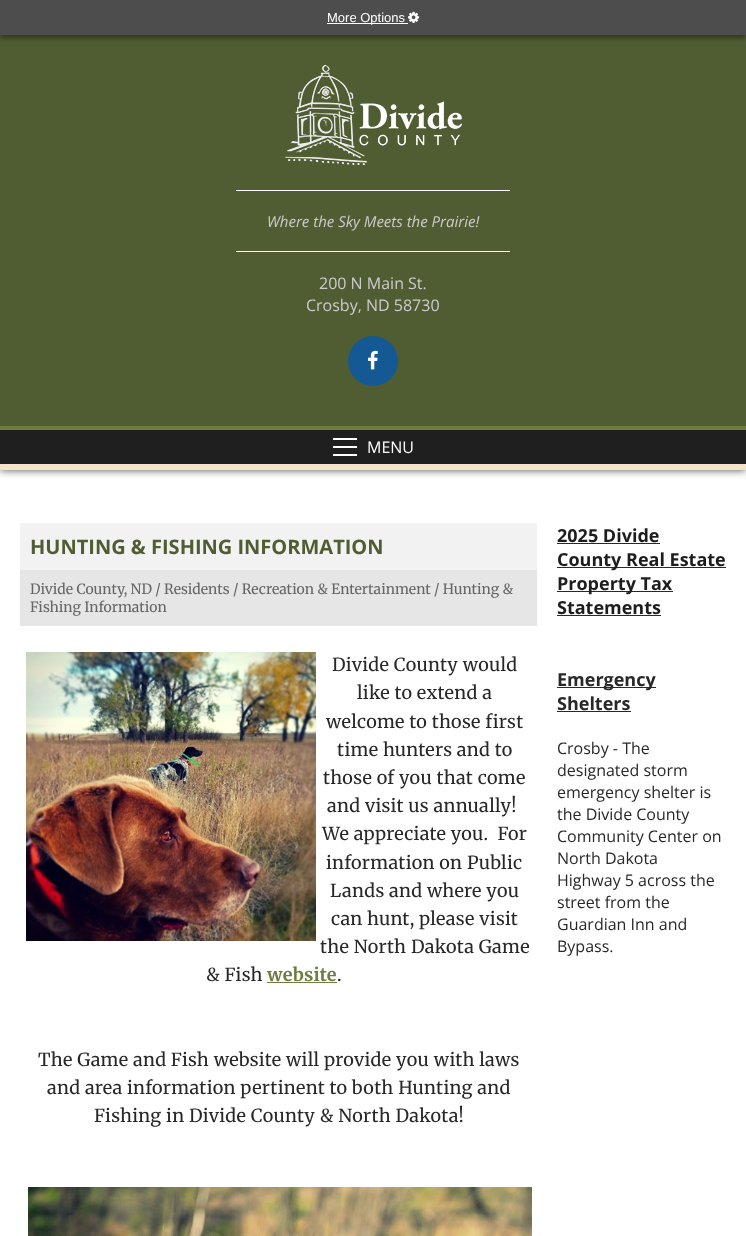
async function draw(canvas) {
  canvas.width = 746
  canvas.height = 1236
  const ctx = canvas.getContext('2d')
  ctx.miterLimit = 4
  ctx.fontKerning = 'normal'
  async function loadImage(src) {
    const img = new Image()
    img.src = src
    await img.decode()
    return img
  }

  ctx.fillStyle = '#fff'
  ctx.fillRect(0, 0, 746, 1236)
  ctx.fillStyle = '#000000b3'
  ctx.filter = 'blur(4px)'
  ctx.beginPath()
  ctx.rect(0, 426, 746, 44)
  ctx.fill()
  ctx.filter = 'none'
  ctx.fillStyle = '#505c32'
  ctx.fillRect(0, 35, 746, 391)
  ctx.fillStyle = '#00000066'
  ctx.filter = 'blur(2.5px)'
  ctx.beginPath()
  ctx.rect(0, 3, 746, 35)
  ctx.fill()
  ctx.filter = 'none'
  ctx.fillStyle = '#4d4d4d'
  ctx.fillRect(0, 0, 746, 35)
  ctx.fillStyle = '#fff'
  ctx.fillRect(327, 23, 81, 1)
  ctx.font = '13px Liberation Sans'
  ctx.fillText('More Options', 327, 22)
  ctx.drawImage(await loadImage('image0.png'), 408, 11, 12, 12)
  ctx.drawImage(await loadImage('image1.png'), 285, 65, 177, 100)
  ctx.fillRect(236, 190, 274, 1)
  ctx.font = 'italic 15px Open Sans'
  ctx.fillStyle = '#ccc'
  ctx.fillText('Where the Sky Meets the Prairie!', 267, 227)
  ctx.fillStyle = '#fff'
  ctx.fillRect(236, 251, 274, 1)
  ctx.font = '16px Open Sans'
  ctx.fillStyle = '#ccc'
  ctx.fillText('200 N Main St.', 319, 289)
  ctx.fillText('Crosby, ND 58730', 306, 311)
  ctx.fillStyle = '#145993'
  ctx.beginPath()
  ctx.arc(373, 361, 25, 0, 2 * Math.PI)
  ctx.fill()
  ctx.drawImage(await loadImage('image2.png'), 368, 350, 10, 20)
  ctx.fillStyle = '#f2e3c9'
  ctx.fillRect(0, 464, 746, 6)
  ctx.fillStyle = '#6d7d40'
  ctx.fillRect(0, 426, 746, 4)
  ctx.fillStyle = '#1f1f1f'
  ctx.fillRect(0, 430, 746, 34)
  ctx.fillStyle = '#fff'
  ctx.fillRect(333, 446, 24, 2)
  ctx.fillRect(333, 438, 24, 2)
  ctx.fillRect(333, 454, 24, 2)
  ctx.fillText('MENU', 367, 453)
  ctx.fillStyle = '#f2f2f2'
  ctx.fillRect(20, 523, 517, 47)
  ctx.font = 'bold 20px Open Sans'
  ctx.fillStyle = '#505c32'
  ctx.fillText('HUNTING & FISHING INFORMATION', 30, 554)
  ctx.fillStyle = '#e6e6e6'
  ctx.fillRect(20, 570, 517, 56)
  ctx.font = '14px Merriweather'
  ctx.fillStyle = '#666'
  ctx.fillText('Divide County, ND / Residents / Recreation & Entertainment / Hunting &', 30, 594)
  ctx.fillText('Fishing Information', 30, 612)
  ctx.drawImage(await loadImage('image3.png'), 26, 652, 290, 289)
  ctx.letterSpacing = '0.3px'
  ctx.font = '18px Merriweather'
  ctx.fillStyle = '#282828'
  ctx.fillText('Divide County would', 332, 671)
  ctx.fillText('like to extend a', 357, 699)
  ctx.fillText('welcome to those first', 326, 728)
  ctx.fillText('time hunters and to', 337, 756)
  ctx.fillText('those of you that come', 323, 784)
  ctx.fillText('and visit us annually!', 327, 812)
  ctx.fillText('We appreciate you.  For', 322, 840)
  ctx.fillText('information on Public', 326, 869)
  ctx.fillText('Lands and where you', 330, 897)
  ctx.fillText('can hunt, please visit', 331, 925)
  ctx.fillText('the North Dakota Game', 320, 953)
  ctx.fillText('& Fish', 206, 981)
  ctx.font = 'bold 18px Merriweather'
  ctx.fillStyle = '#6d7d40'
  ctx.fillText('website', 267, 981)
  ctx.fillRect(267, 982, 70, 1)
  ctx.font = '18px Merriweather'
  ctx.fillStyle = '#282828'
  ctx.fillText('.', 337, 981)
  ctx.fillText('The Game and Fish website will provide you with laws', 38, 1066)
  ctx.fillText('and area information pertinent to both Hunting and', 47, 1094)
  ctx.fillText('Fishing in Divide County & North Dakota!', 94, 1122)
  ctx.drawImage(await loadImage('image4.png'), 28, 1187, 504, 49)
  ctx.letterSpacing = '0px'
  ctx.font = 'bold 18px Open Sans'
  ctx.fillStyle = '#1d1d1d'
  ctx.fillText('2025 Divide', 557, 542)
  ctx.fillStyle = '#282828'
  ctx.fillRect(557, 543, 103, 1)
  ctx.fillRect(557, 567, 169, 1)
  ctx.fillStyle = '#1d1d1d'
  ctx.fillText('County Real Estate', 557, 566)
  ctx.fillStyle = '#282828'
  ctx.fillRect(557, 591, 116, 1)
  ctx.fillStyle = '#1d1d1d'
  ctx.fillText('Property Tax', 557, 590)
  ctx.fillText('Statements', 557, 614)
  ctx.fillStyle = '#282828'
  ctx.fillRect(557, 615, 104, 1)
  ctx.fillRect(557, 687, 99, 1)
  ctx.fillText('Emergency', 557, 686)
  ctx.fillText('Shelters', 557, 710)
  ctx.fillRect(557, 711, 74, 1)
  ctx.font = '16px Open Sans'
  ctx.fillText('Crosby - The', 557, 754)
  ctx.fillText('designated storm', 557, 776)
  ctx.fillText('emergency shelter is', 557, 798)
  ctx.fillText('the Divide County', 557, 820)
  ctx.fillText('Community Center on', 557, 842)
  ctx.fillText('North Dakota', 557, 864)
  ctx.fillText('Highway 5 across the', 557, 886)
  ctx.fillText('street from the', 557, 908)
  ctx.fillText('Guardian Inn and', 557, 930)
  ctx.fillText('Bypass.', 557, 952)
}

draw(document.querySelector('canvas'))
